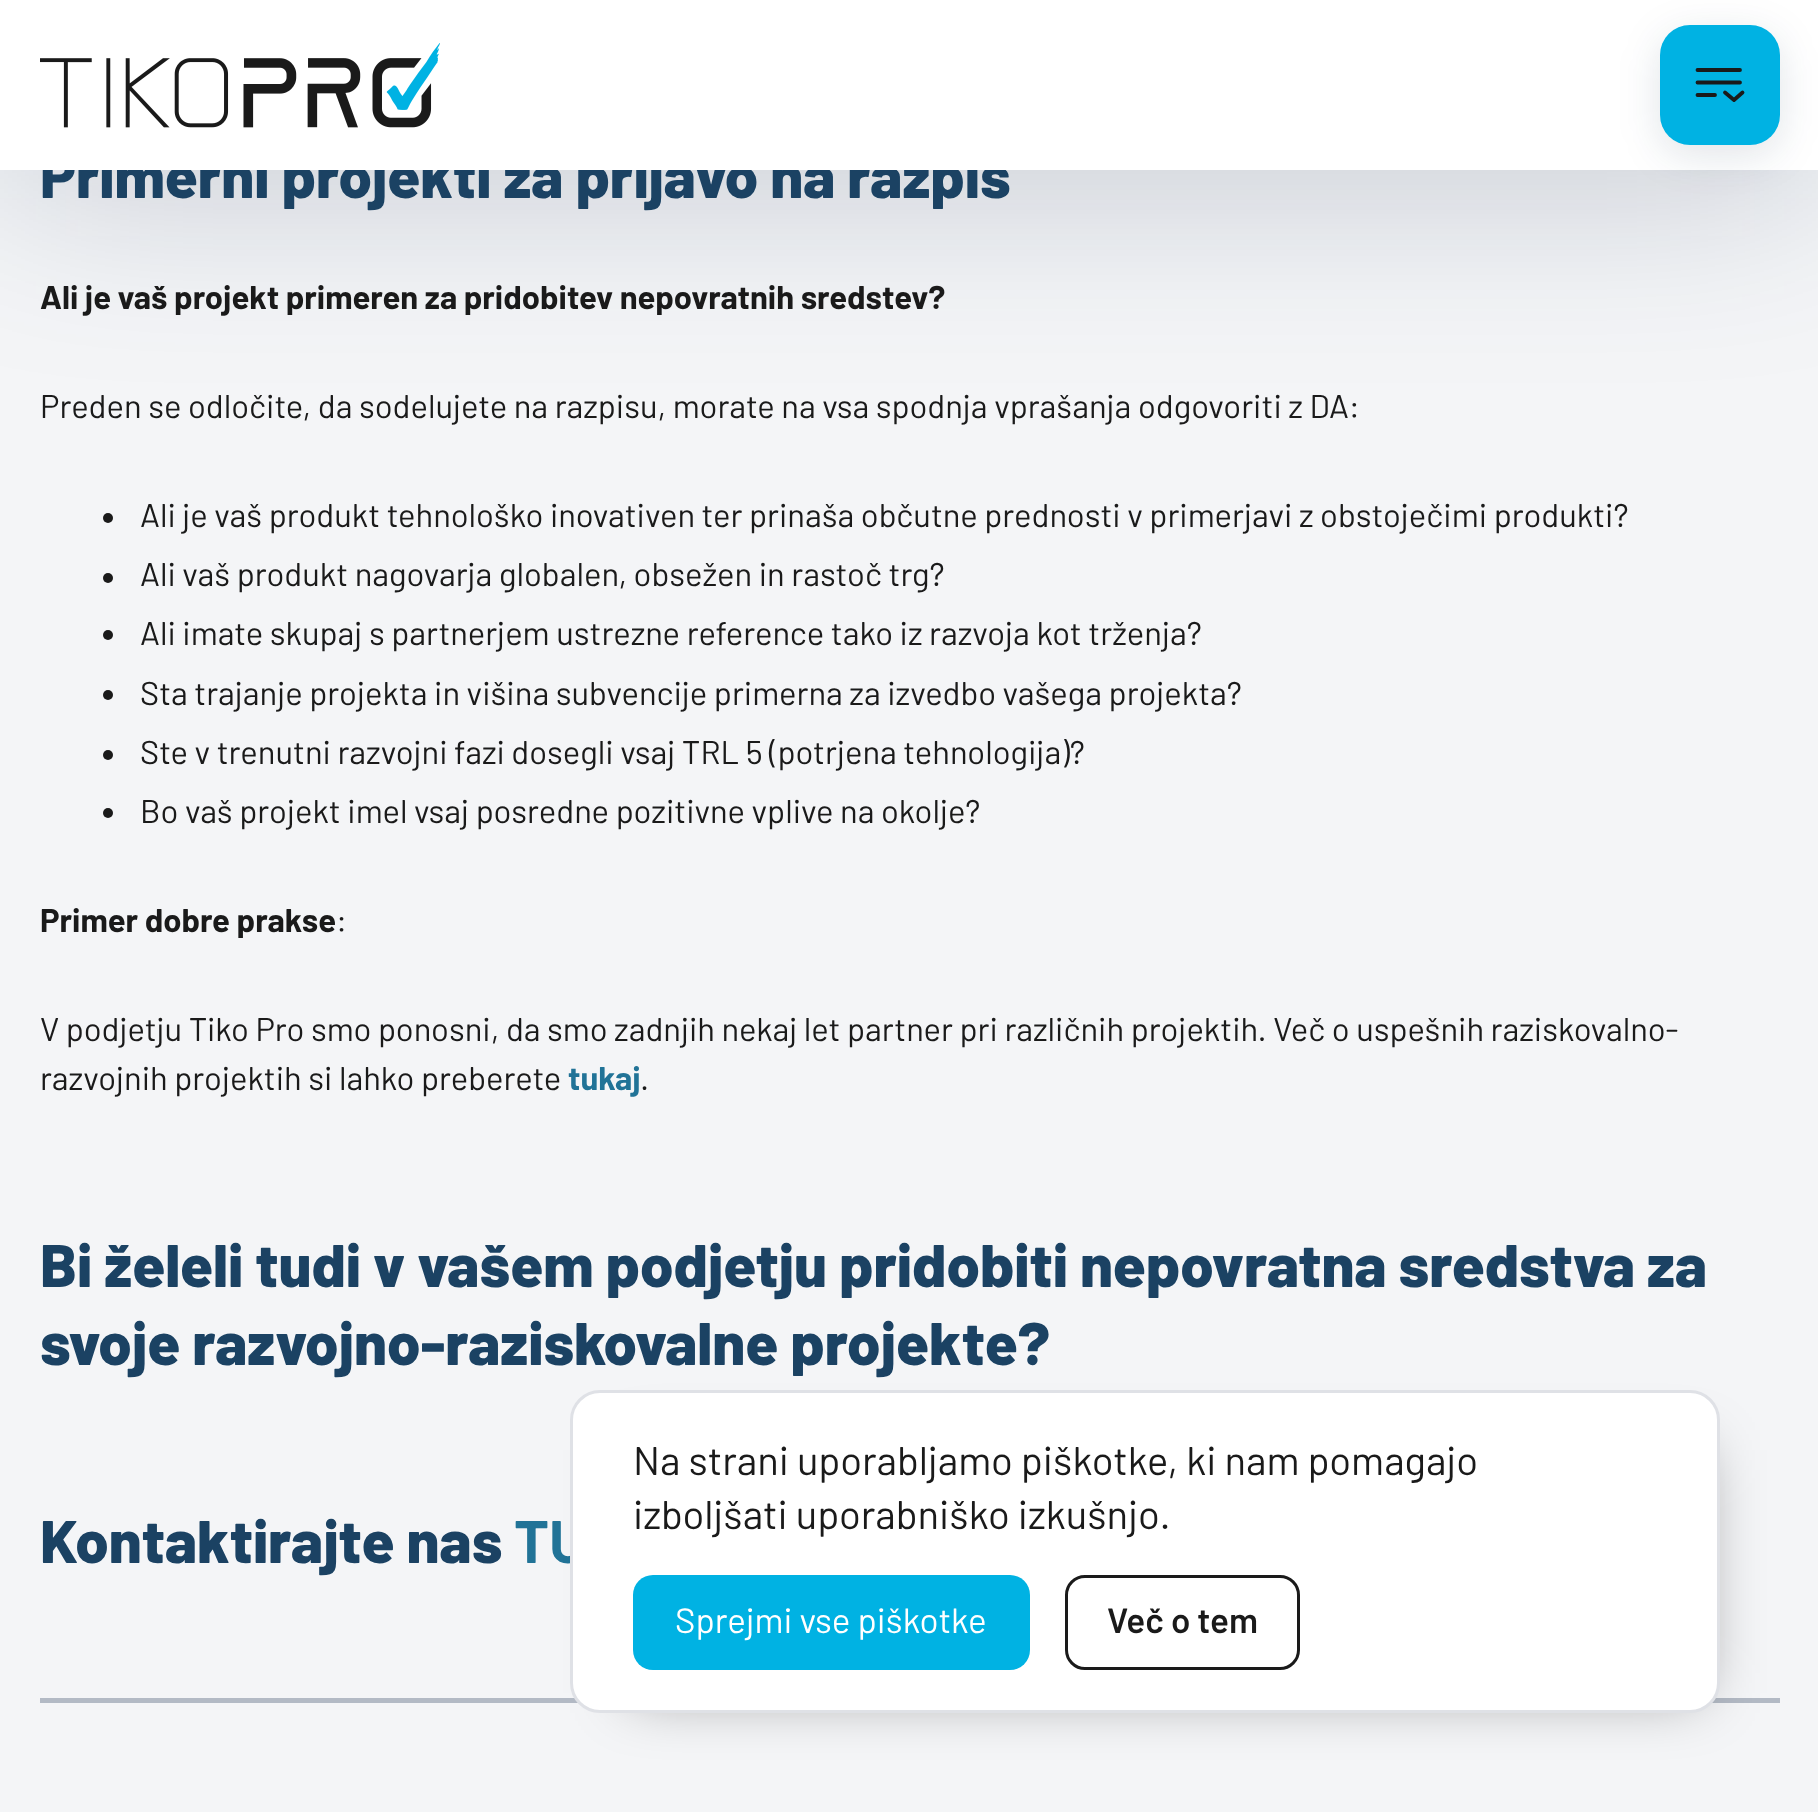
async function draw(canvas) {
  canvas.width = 1818
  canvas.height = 1812
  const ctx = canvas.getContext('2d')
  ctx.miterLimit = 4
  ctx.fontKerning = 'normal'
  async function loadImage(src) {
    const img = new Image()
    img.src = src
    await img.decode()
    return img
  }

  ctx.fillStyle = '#f4f5f7'
  ctx.fillRect(0, 0, 1818, 1812)
  ctx.fillStyle = '#091e423d'
  ctx.filter = 'blur(100px)'
  ctx.beginPath()
  ctx.rect(0, 0, 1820, 170)
  ctx.fill()
  ctx.filter = 'none'
  ctx.font = '800 60px Barlow'
  ctx.fillStyle = '#1b4263'
  ctx.fillText('Primerni projekti za prijavo na razpis', 40, 198)
  ctx.fillStyle = '#fff'
  ctx.fillRect(0, 0, 1818, 170)
  ctx.drawImage(await loadImage('image0.png'), 40, 43, 400, 85)
  ctx.fillStyle = '#091e421f'
  ctx.filter = 'blur(20px)'
  ctx.beginPath()
  ctx.roundRect(1660, 35, 120, 120, 30)
  ctx.fill()
  ctx.filter = 'none'
  ctx.fillStyle = '#00b2e3'
  ctx.beginPath()
  ctx.roundRect(1660, 25, 120, 120, 30)
  ctx.fill()
  ctx.beginPath()
  ctx.moveTo(1740, 70)
  ctx.lineTo(1697.5, 70)
  ctx.moveTo(1740, 82.5)
  ctx.lineTo(1697.5, 82.5)
  ctx.moveTo(1715, 95)
  ctx.lineTo(1697.5, 95)
  ctx.strokeStyle = '#1a1a1a'
  ctx.lineWidth = 3.8
  ctx.lineCap = 'round'
  ctx.stroke()
  ctx.beginPath()
  ctx.moveTo(1725, 92.5)
  ctx.lineTo(1734, 100)
  ctx.lineTo(1742.5, 92.5)
  ctx.lineJoin = 'round'
  ctx.stroke()
  ctx.font = 'bold 32.75px Barlow'
  ctx.fillStyle = '#1a1a1a'
  ctx.fillText('Ali je vaš projekt primeren za pridobitev nepovratnih sredstev?', 40, 309)
  ctx.font = '32.75px Barlow'
  ctx.fillText('Preden se odločite, da sodelujete na razpisu, morate na vsa spodnja vprašanja odgovoriti z DA:', 40, 418)
  ctx.beginPath()
  ctx.arc(108, 518, 5, 0, 2 * Math.PI)
  ctx.fill()
  ctx.fillText('Ali je vaš produkt tehnološko inovativen ter prinaša občutne prednosti v primerjavi z obstoječimi produkti?', 140, 527)
  ctx.beginPath()
  ctx.arc(108, 578, 5, 0, 2 * Math.PI)
  ctx.fill()
  ctx.fillText('Ali vaš produkt nagovarja globalen, obsežen in rastoč trg?', 140, 586)
  ctx.beginPath()
  ctx.arc(108, 635, 5, 0, 2 * Math.PI)
  ctx.fill()
  ctx.fillText('Ali imate skupaj s partnerjem ustrezne reference tako iz razvoja kot trženja?', 140, 645)
  ctx.beginPath()
  ctx.arc(108, 695, 5, 0, 2 * Math.PI)
  ctx.fill()
  ctx.fillText('Sta trajanje projekta in višina subvencije primerna za izvedbo vašega projekta?', 140, 705)
  ctx.beginPath()
  ctx.arc(108, 755, 5, 0, 2 * Math.PI)
  ctx.fill()
  ctx.fillText('Ste v trenutni razvojni fazi dosegli vsaj TRL 5 (potrjena tehnologija)?', 140, 764)
  ctx.beginPath()
  ctx.arc(108, 813, 5, 0, 2 * Math.PI)
  ctx.fill()
  ctx.fillText('Bo vaš projekt imel vsaj posredne pozitivne vplive na okolje?', 140, 823)
  ctx.font = 'bold 32.75px Barlow'
  ctx.fillText('Primer dobre prakse', 40, 932)
  ctx.font = '32.75px Barlow'
  ctx.fillText(':', 336, 932)
  ctx.fillText('V podjetju Tiko Pro smo ponosni, da smo zadnjih nekaj let partner pri različnih projektih. Več o uspešnih raziskovalno-', 40, 1041)
  ctx.fillText('razvojnih projektih si lahko preberete', 40, 1090)
  ctx.font = 'bold 32.75px Barlow'
  ctx.fillStyle = '#217397'
  ctx.fillText('tukaj', 568, 1090)
  ctx.font = '32.75px Barlow'
  ctx.fillStyle = '#1a1a1a'
  ctx.fillText('.', 640, 1090)
  ctx.font = '800 60px Barlow'
  ctx.fillStyle = '#1b4263'
  ctx.fillText('Bi želeli tudi v vašem podjetju pridobiti nepovratna sredstva za', 40, 1287)
  ctx.fillText('svoje razvojno-raziskovalne projekte?', 40, 1365)
  ctx.fillText('Kontaktirajte nas', 40, 1563)
  ctx.font = 'bold 60px Barlow'
  ctx.fillStyle = '#217397'
  ctx.fillText('TU', 514, 1563)
  ctx.fillStyle = '#b3bac5'
  ctx.fillRect(40, 1698, 1740, 5)
  ctx.fillStyle = '#0000006b'
  ctx.filter = 'blur(30px)'
  ctx.beginPath()
  ctx.rect(630, 1450, 1070, 243)
  ctx.fill()
  ctx.filter = 'none'
  ctx.fillStyle = '#fff'
  ctx.beginPath()
  ctx.roundRect(571.5, 1391.5, 1147, 320, 28.5)
  ctx.fill()
  ctx.strokeStyle = '#dfe1e6'
  ctx.lineWidth = 3
  ctx.lineJoin = 'miter'
  ctx.stroke()
  ctx.font = '40px Barlow'
  ctx.fillStyle = '#1a1a1a'
  ctx.fillText('Na strani uporabljamo piškotke, ki nam pomagajo', 633, 1475)
  ctx.fillText('izboljšati uporabniško izkušnjo.', 633, 1529)
  ctx.fillStyle = '#00b2e3'
  ctx.beginPath()
  ctx.roundRect(633, 1575, 397, 95, 20)
  ctx.fill()
  ctx.font = '35px Barlow'
  ctx.fillStyle = '#fff'
  ctx.fillText('Sprejmi vse piškotke', 675, 1633)
  ctx.beginPath()
  ctx.roundRect(1066.5, 1576.5, 232, 92, 18.5)
  ctx.strokeStyle = '#1a1a1a'
  ctx.stroke()
  ctx.font = '600 35px Barlow'
  ctx.fillStyle = '#1a1a1a'
  ctx.fillText('Več o tem', 1107, 1633)
}

draw(document.querySelector('canvas'))
